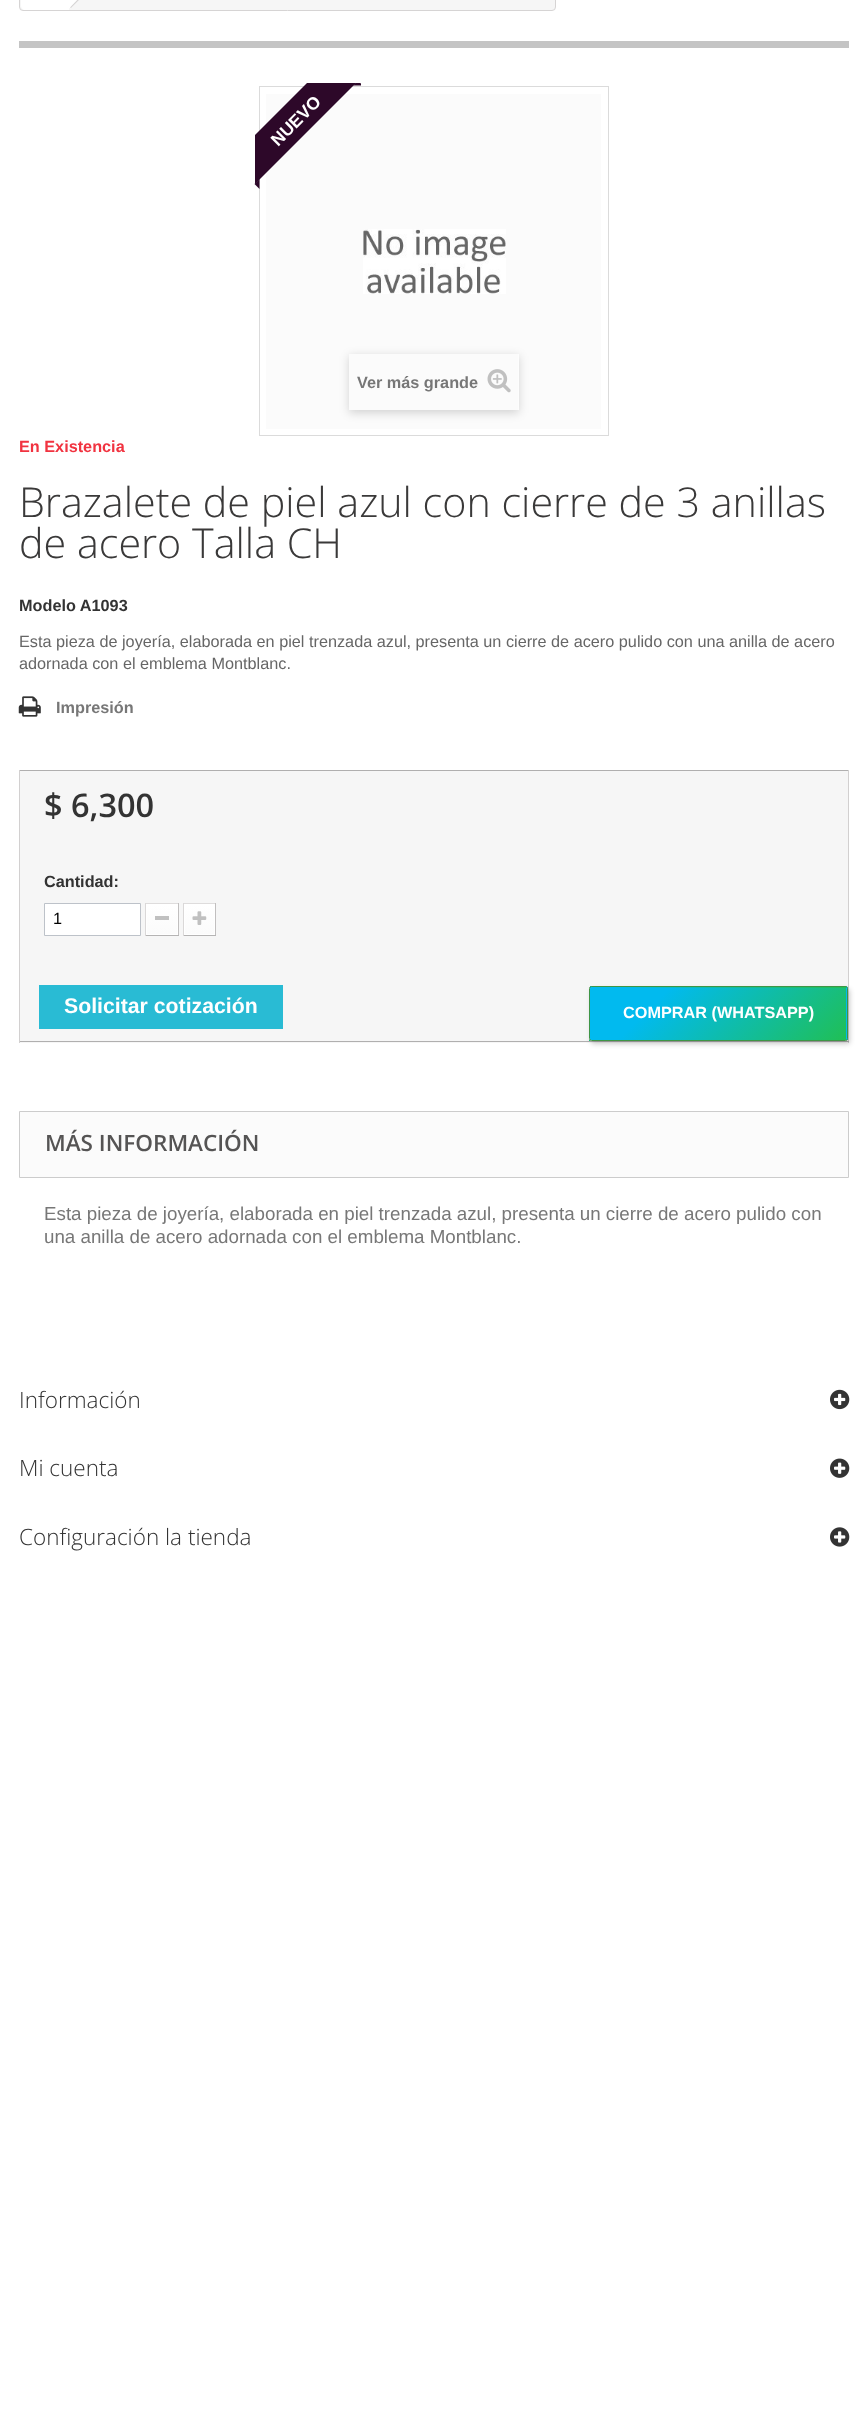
async function draw(canvas) {
  canvas.width = 867
  canvas.height = 2422
  const ctx = canvas.getContext('2d')
  ctx.miterLimit = 4
  ctx.fontKerning = 'normal'
  async function loadImage(src) {
    const img = new Image()
    img.src = src
    await img.decode()
    return img
  }
  let gradient

  ctx.fillStyle = '#fff'
  ctx.fillRect(0, 0, 867, 2422)
  ctx.fillStyle = '#f6f6f6'
  ctx.beginPath()
  ctx.roundRect(19.5, -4.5, 536, 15, 3.5)
  ctx.fill()
  ctx.strokeStyle = '#d6d4d4'
  ctx.stroke()
  ctx.fillStyle = '#fff'
  ctx.beginPath()
  ctx.moveTo(25, -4)
  ctx.lineTo(69, -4)
  ctx.lineTo(69, 10)
  ctx.lineTo(25, 10)
  ctx.bezierCurveTo(23, 10, 21, 8, 21, 6)
  ctx.lineTo(21, 0)
  ctx.bezierCurveTo(21, -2, 23, -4, 25, -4)
  ctx.closePath()
  ctx.fill()
  ctx.beginPath()
  ctx.moveTo(72, -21)
  ctx.lineTo(68, -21)
  ctx.lineTo(56, -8.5)
  ctx.bezierCurveTo(55, -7.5, 55, -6, 56, -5)
  ctx.lineTo(68, 7.5)
  ctx.bezierCurveTo(69, 8.5, 71, 8.5, 72, 7.5)
  ctx.lineTo(84, -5)
  ctx.bezierCurveTo(85, -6, 85, -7.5, 84, -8.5)
  ctx.closePath()
  ctx.fill()
  ctx.fillStyle = '#d6d4d4'
  ctx.beginPath()
  ctx.moveTo(84, -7)
  ctx.lineTo(85, -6)
  ctx.lineTo(71, 8)
  ctx.lineTo(70, 7.5)
  ctx.closePath()
  ctx.fill()
  ctx.fillStyle = '#c4c4c4'
  ctx.fillRect(19, 41, 830, 7)
  ctx.strokeStyle = '#dbdbdb'
  ctx.strokeRect(259.5, 86.5, 349, 349)
  ctx.fillStyle = '#fbfbfb'
  ctx.fillRect(266, 94, 335, 335)
  ctx.save()
  ctx.beginPath()
  ctx.rect(255, 83, 106, 106)
  ctx.clip()
  ctx.fillStyle = '#2d0829'
  ctx.beginPath()
  ctx.moveTo(225, 165)
  ctx.lineTo(340, 50)
  ctx.lineTo(365, 74)
  ctx.lineTo(250, 189)
  ctx.closePath()
  ctx.fill()
  ctx.beginPath()
  ctx.moveTo(363, 85.5)
  ctx.lineTo(353, 85.5)
  ctx.lineTo(358, 80.5)
  ctx.closePath()
  ctx.fill()
  ctx.restore()
  ctx.font = 'bold 17.5px Liberation Sans'
  ctx.fillStyle = '#fff'
  ctx.save()
  ctx.translate(278, 147)
  ctx.rotate(-45 * Math.PI / 180)
  ctx.fillText('NUEVO', 0, 0)
  ctx.restore()
  ctx.fillStyle = '#2d0829'
  ctx.beginPath()
  ctx.moveTo(259.5, 179)
  ctx.lineTo(259.5, 189)
  ctx.lineTo(254.5, 184)
  ctx.closePath()
  ctx.fill()
  ctx.drawImage(await loadImage('image0.png'), 363, 229, 143, 65)
  ctx.save()
  ctx.beginPath()
  ctx.moveTo(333, 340)
  ctx.lineTo(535, 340)
  ctx.lineTo(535, 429)
  ctx.lineTo(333, 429)
  ctx.closePath()
  ctx.moveTo(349, 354)
  ctx.lineTo(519, 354)
  ctx.lineTo(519, 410)
  ctx.lineTo(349, 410)
  ctx.closePath()
  ctx.clip('evenodd')
  ctx.fillStyle = '#00000029'
  ctx.filter = 'blur(5px)'
  ctx.beginPath()
  ctx.rect(349, 356, 170, 57)
  ctx.fill()
  ctx.filter = 'none'
  ctx.restore()
  ctx.fillStyle = '#ffffff80'
  ctx.fillRect(518, 354, 1, 56)
  ctx.font = 'bold 16.25px Liberation Sans'
  ctx.fillStyle = '#777'
  ctx.fillText('Ver más grande', 357, 388)
  ctx.drawImage(await loadImage('image1.png'), 487, 369, 24, 24)
  ctx.fillStyle = '#f13340'
  ctx.fillText('En Existencia', 19, 452)
  ctx.font = '300 41.25px Open Sans'
  ctx.fillStyle = '#3a3939'
  ctx.fillText('Brazalete de piel azul con cierre de 3 anillas', 19, 517)
  ctx.fillText('de acero Talla CH', 19, 558)
  ctx.font = 'bold 16.25px Liberation Sans'
  ctx.fillStyle = '#333'
  ctx.fillText('Modelo A1093', 19, 611)
  ctx.font = '16.25px Liberation Sans'
  ctx.fillStyle = '#666'
  ctx.fillText('Esta pieza de joyería, elaborada en piel trenzada azul, presenta un cierre de acero pulido con una anilla de acero', 19, 647)
  ctx.fillText('adornada con el emblema Montblanc.', 19, 669)
  ctx.drawImage(await loadImage('image2.png'), 18, 696, 23, 21)
  ctx.font = 'bold 16.25px Liberation Sans'
  ctx.fillStyle = '#777'
  ctx.fillText('Impresión', 56, 713)
  ctx.fillStyle = '#f6f6f6'
  ctx.fillRect(20, 771, 828, 272)
  ctx.fillStyle = '#b0afaf'
  ctx.fillRect(19, 770, 830, 1)
  ctx.fillStyle = '#d2d0d0'
  ctx.fillRect(848, 770, 1, 273)
  ctx.fillStyle = '#b0afaf'
  ctx.fillRect(19, 1041, 830, 1)
  ctx.fillStyle = '#d2d0d0'
  ctx.fillRect(19, 770, 1, 273)
  ctx.font = '600 32.5px Open Sans'
  ctx.fillStyle = '#333'
  ctx.fillText('$ 6,300', 44, 817)
  ctx.font = 'bold 16.25px Liberation Sans'
  ctx.fillText('Cantidad:', 44, 887)
  ctx.fillStyle = '#fff'
  ctx.beginPath()
  ctx.rect(44.5, 903.5, 96, 32)
  ctx.fill()
  ctx.strokeStyle = '#bdc2c9'
  ctx.stroke()
  ctx.font = '16.25px Liberation Sans'
  ctx.fillStyle = '#000'
  ctx.fillText('1', 53, 924)
  ctx.fillStyle = '#dedcdc'
  ctx.fillRect(145, 903, 34, 1)
  ctx.fillStyle = '#c1bfbf'
  ctx.fillRect(178, 903, 1, 33)
  ctx.fillStyle = '#b5b4b4'
  ctx.fillRect(145, 935, 34, 1)
  ctx.fillStyle = '#dad8d8'
  ctx.fillRect(145, 903, 1, 33)
  gradient = ctx.createLinearGradient(162, 905, 162, 934)
  gradient.addColorStop(0, '#fff')
  gradient.addColorStop(1, '#fbfbfb')
  ctx.fillStyle = gradient
  ctx.fillRect(147, 905, 30, 29)
  ctx.strokeStyle = '#fff'
  ctx.strokeRect(146.5, 904.5, 31, 30)
  ctx.fillStyle = '#c0c0c0'
  ctx.fillRect(155, 916, 14, 4)
  ctx.fillStyle = '#dedcdc'
  ctx.fillRect(183, 903, 33, 1)
  ctx.fillStyle = '#c1bfbf'
  ctx.fillRect(215, 903, 1, 33)
  ctx.fillStyle = '#b5b4b4'
  ctx.fillRect(183, 935, 33, 1)
  ctx.fillStyle = '#dad8d8'
  ctx.fillRect(183, 903, 1, 33)
  gradient = ctx.createLinearGradient(199, 905, 199, 934)
  gradient.addColorStop(0, '#fff')
  gradient.addColorStop(1, '#fbfbfb')
  ctx.fillStyle = gradient
  ctx.fillRect(185, 905, 29, 29)
  ctx.strokeRect(184.5, 904.5, 30, 30)
  ctx.drawImage(await loadImage('image3.png'), 192, 911, 15, 14)
  ctx.fillStyle = '#29bbd4'
  ctx.fillRect(39, 985, 244, 44)
  ctx.font = 'bold 21.25px Liberation Sans'
  ctx.fillStyle = '#fff'
  ctx.fillText('Solicitar cotización', 64, 1013)
  ctx.fillStyle = '#00000033'
  ctx.filter = 'blur(2.5px)'
  ctx.beginPath()
  ctx.roundRect(591, 989, 259, 55, 2.5)
  ctx.fill()
  ctx.filter = 'none'
  gradient = ctx.createLinearGradient(795, 1038, 641, 884)
  gradient.addColorStop(0, '#20bf55')
  gradient.addColorStop(0.74, '#01baef')
  ctx.fillStyle = gradient
  ctx.fillRect(590, 986, 256, 2)
  ctx.save()
  ctx.beginPath()
  ctx.roundRect(589, 986, 259, 55, 2.5)
  ctx.clip()
  gradient = ctx.createLinearGradient(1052, 1038, 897, 884)
  gradient.addColorStop(0, '#20bf55')
  gradient.addColorStop(0.74, '#01baef')
  ctx.fillStyle = gradient
  ctx.fillRect(846, 986, 2, 2)
  ctx.restore()
  gradient = ctx.createLinearGradient(795, 1091, 641, 937)
  gradient.addColorStop(0, '#20bf55')
  gradient.addColorStop(0.74, '#01baef')
  ctx.fillStyle = gradient
  ctx.fillRect(590, 988, 256, 52)
  gradient = ctx.createLinearGradient(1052, 1091, 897, 937)
  gradient.addColorStop(0, '#20bf55')
  gradient.addColorStop(0.74, '#01baef')
  ctx.fillStyle = gradient
  ctx.fillRect(846, 988, 2, 52)
  gradient = ctx.createLinearGradient(539, 1143, 385, 989)
  gradient.addColorStop(0, '#20bf55')
  gradient.addColorStop(0.74, '#01baef')
  ctx.fillStyle = gradient
  ctx.fillRect(589, 1040, 1, 1)
  ctx.beginPath()
  ctx.roundRect(589.5, 986.5, 258, 54, 2)
  ctx.strokeStyle = '#3e9546'
  ctx.stroke()
  ctx.font = 'bold 16.25px Liberation Sans'
  ctx.fillStyle = '#fff'
  ctx.fillText('COMPRAR (WHATSAPP)', 623, 1018)
  ctx.fillStyle = '#fbfbfb'
  ctx.beginPath()
  ctx.rect(19.5, 1111.5, 829, 66)
  ctx.fill()
  ctx.strokeStyle = '#ccc'
  ctx.stroke()
  ctx.font = '600 22.5px Open Sans'
  ctx.fillStyle = '#555454'
  ctx.fillText('MÁS INFORMACIÓN', 45, 1151)
  ctx.font = '18.75px Liberation Sans'
  ctx.fillStyle = '#777'
  ctx.fillText('Esta pieza de joyería, elaborada en piel trenzada azul, presenta un cierre de acero pulido con', 44, 1220)
  ctx.fillText('una anilla de acero adornada con el emblema Montblanc.', 44, 1243)
  ctx.font = '300 22.5px Open Sans'
  ctx.fillStyle = '#333'
  ctx.fillText('Información', 19, 1408)
  ctx.drawImage(await loadImage('image4.png'), 830, 1389, 20, 21)
  ctx.fillText('Mi cuenta', 19, 1476)
  ctx.drawImage(await loadImage('image5.png'), 830, 1458, 20, 20)
  ctx.fillText('Configuración la tienda', 19, 1545)
  ctx.drawImage(await loadImage('image6.png'), 830, 1527, 20, 20)
}

draw(document.querySelector('canvas'))
